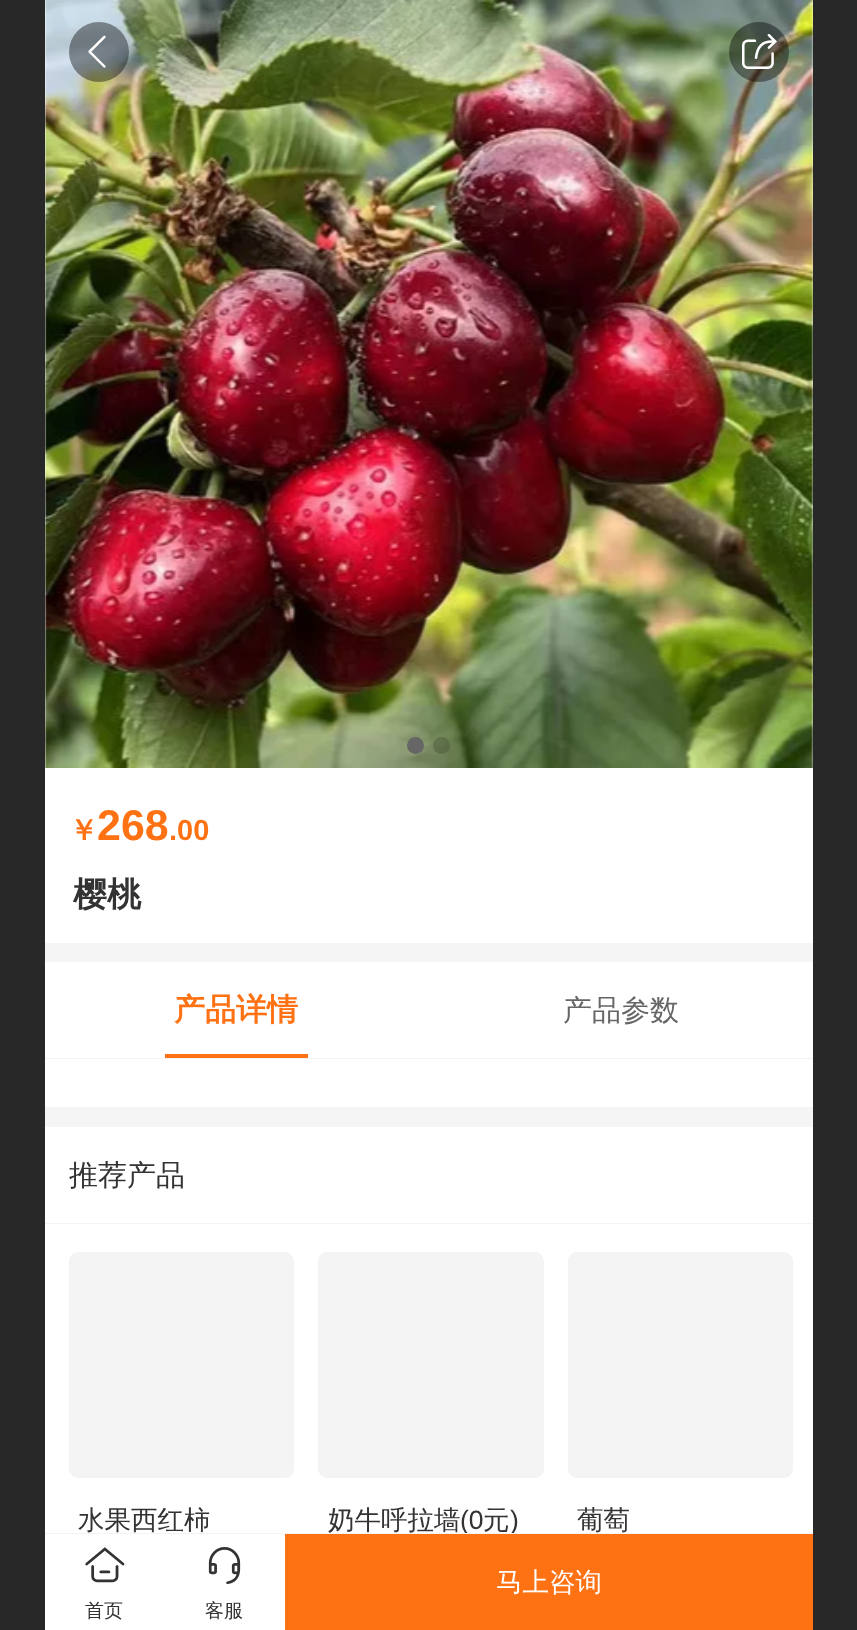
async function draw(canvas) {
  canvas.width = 857
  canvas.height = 1630
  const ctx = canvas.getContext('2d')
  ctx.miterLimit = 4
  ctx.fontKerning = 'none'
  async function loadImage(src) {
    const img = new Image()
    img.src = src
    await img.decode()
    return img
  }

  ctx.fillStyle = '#fff'
  ctx.fillRect(0, 0, 857, 1630)
  ctx.fillStyle = '#282828'
  ctx.fillRect(0, 0, 45, 1630)
  ctx.drawImage(await loadImage('image0.png'), 45, 0, 768, 768)
  ctx.fillStyle = '#00000066'
  ctx.beginPath()
  ctx.arc(99, 52, 30, 0, 2 * Math.PI)
  ctx.fill()
  ctx.font = '32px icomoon'
  ctx.fillStyle = '#fff'
  ctx.fillText('򰊔', 81, 65)
  ctx.fillStyle = '#00000066'
  ctx.beginPath()
  ctx.arc(759, 52, 30, 0, 2 * Math.PI)
  ctx.fill()
  ctx.font = '35px icomoon'
  ctx.fillStyle = '#fff'
  ctx.fillText('򰌑', 742, 66)
  ctx.fillStyle = '#666'
  ctx.beginPath()
  ctx.arc(415.5, 745.5, 8.5, 0, 2 * Math.PI)
  ctx.fill()
  ctx.fillStyle = '#00000026'
  ctx.beginPath()
  ctx.arc(441.5, 745.5, 8.5, 0, 2 * Math.PI)
  ctx.fill()
  ctx.font = 'bold 29px WenQuanYi Zen Hei'
  ctx.fillStyle = '#ff7214'
  ctx.fillText('￥', 69, 840)
  ctx.font = 'bold 43px Liberation Sans'
  ctx.fillText('268', 97, 840)
  ctx.font = 'bold 29px Liberation Sans'
  ctx.fillText('.00', 169, 840)
  ctx.font = 'bold 34px WenQuanYi Zen Hei'
  ctx.fillStyle = '#333'
  ctx.fillText('樱桃', 73, 906)
  ctx.fillStyle = '#f5f5f5'
  ctx.fillRect(45, 943, 768, 19)
  ctx.fillStyle = '#f3f3f3'
  ctx.fillRect(45, 1058, 768, 1)
  ctx.fillStyle = '#ff7214'
  ctx.fillRect(165, 1054, 143, 4)
  ctx.font = 'bold 31px WenQuanYi Zen Hei'
  ctx.fillText('产品详情', 174, 1020)
  ctx.font = '500 29px WenQuanYi Zen Hei'
  ctx.fillStyle = '#666'
  ctx.fillText('产品参数', 563, 1020)
  ctx.fillStyle = '#f5f5f5'
  ctx.fillRect(45, 1107, 768, 20)
  ctx.fillStyle = '#f3f3f3'
  ctx.fillRect(45, 1223, 768, 1)
  ctx.fillStyle = '#333'
  ctx.fillText('推荐产品', 69, 1185)
  ctx.drawImage(await loadImage('image1.png'), 69, 1253, 224, 224)
  ctx.beginPath()
  ctx.roundRect(69.5, 1252.5, 224, 225, 9.5)
  ctx.strokeStyle = '#f3f3f3'
  ctx.stroke()
  ctx.font = '500 26.5px WenQuanYi Zen Hei'
  ctx.fillText('水果西红柿', 78, 1529)
  ctx.drawImage(await loadImage('image2.png'), 319, 1253, 224, 224)
  ctx.beginPath()
  ctx.roundRect(318.5, 1252.5, 225, 225, 9.5)
  ctx.stroke()
  ctx.fillText('奶牛呼拉墙', 328, 1529)
  ctx.font = '26.5px Liberation Sans'
  ctx.fillText('(0', 460, 1529)
  ctx.font = '500 26.5px WenQuanYi Zen Hei'
  ctx.fillText('元', 483, 1529)
  ctx.font = '26.5px Liberation Sans'
  ctx.fillText(')', 510, 1529)
  ctx.drawImage(await loadImage('image3.png'), 568, 1253, 224, 224)
  ctx.beginPath()
  ctx.roundRect(568.5, 1252.5, 224, 225, 9.5)
  ctx.stroke()
  ctx.font = '500 26.5px WenQuanYi Zen Hei'
  ctx.fillText('葡萄', 577, 1529)
  ctx.fillStyle = '#f3f3f3'
  ctx.fillRect(45, 1533, 768, 1)
  ctx.font = '39px icomoon'
  ctx.fillStyle = '#333'
  ctx.fillText('򰌓', 85, 1581)
  ctx.font = '500 19px WenQuanYi Zen Hei'
  ctx.fillText('首页', 85, 1617)
  ctx.font = '37px icomoon'
  ctx.fillText('򰊘', 206, 1581)
  ctx.font = '500 19px WenQuanYi Zen Hei'
  ctx.fillText('客服', 205, 1617)
  ctx.fillStyle = '#ff7214'
  ctx.fillRect(285, 1534, 528, 96)
  ctx.font = '500 26.5px WenQuanYi Zen Hei'
  ctx.fillStyle = '#fff'
  ctx.fillText('马上咨询', 496, 1591)
  ctx.fillStyle = '#282828'
  ctx.fillRect(813, 0, 44, 1630)
}

draw(document.querySelector('canvas'))
